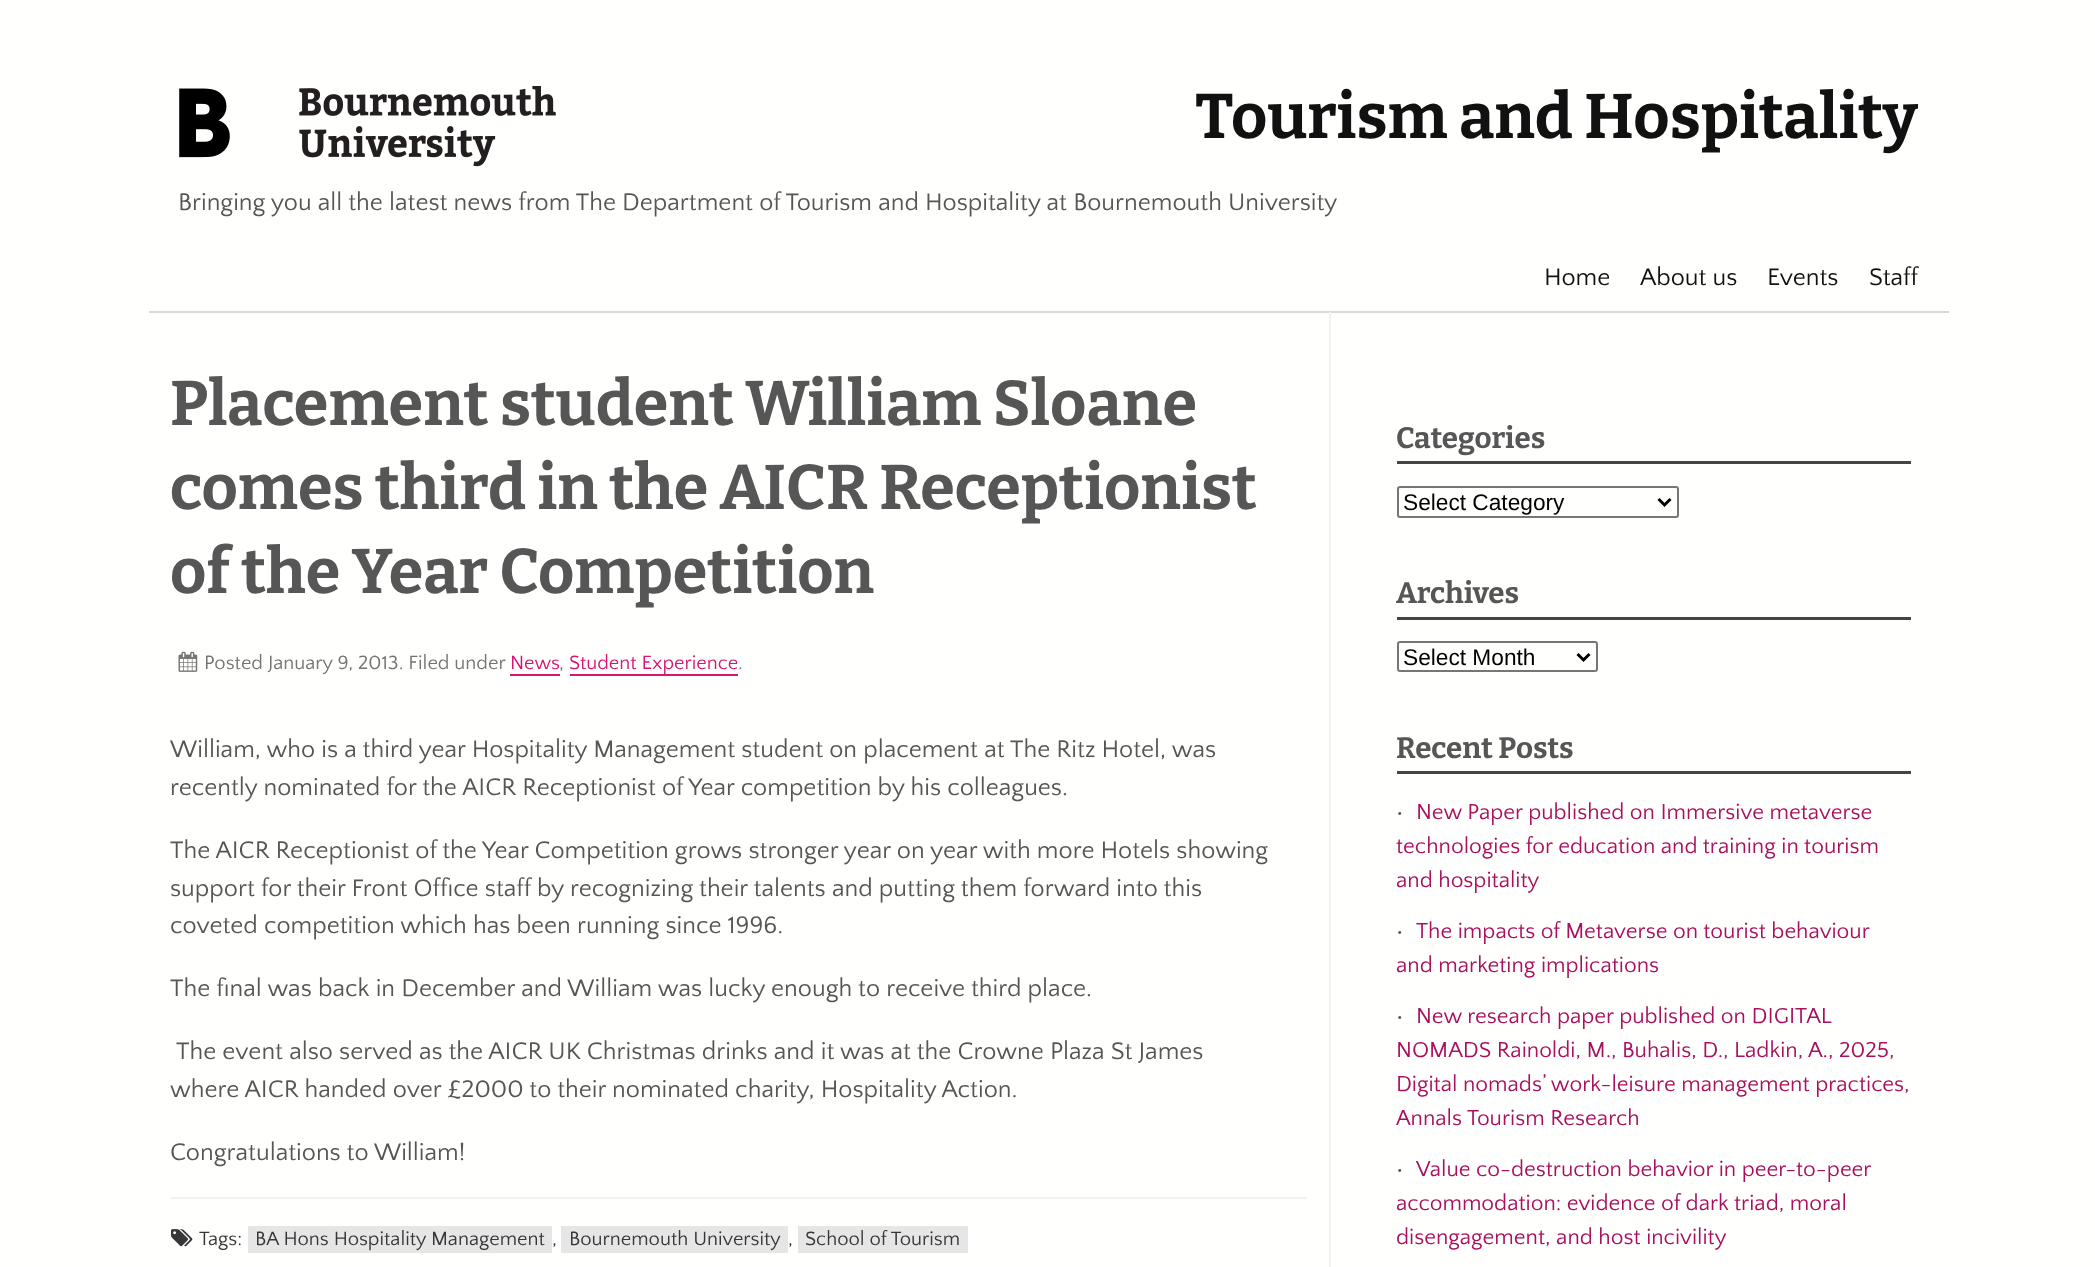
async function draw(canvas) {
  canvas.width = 2095
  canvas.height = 1267
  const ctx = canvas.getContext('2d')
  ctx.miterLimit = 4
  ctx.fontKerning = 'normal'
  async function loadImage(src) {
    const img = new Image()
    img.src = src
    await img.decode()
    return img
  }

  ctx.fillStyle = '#fffffd'
  ctx.fillRect(0, 0, 2095, 1267)
  ctx.fillStyle = '#d9d9d9'
  ctx.fillRect(149, 311, 1800, 2)
  ctx.drawImage(await loadImage('image0.png'), 179, 86, 377, 81)
  ctx.font = 'bold 63px Bitter'
  ctx.fillStyle = '#111'
  ctx.fillText('Tourism and Hospitality', 1195, 138)
  ctx.font = '25.2px Quattrocento Sans'
  ctx.fillStyle = '#565656'
  ctx.fillText('Bringing you all the latest news from The Department of Tourism and Hospitality at Bournemouth University', 178, 210)
  ctx.fillStyle = '#111'
  ctx.fillText('Home', 1544, 285)
  ctx.fillText('About us', 1640, 285)
  ctx.fillText('Events', 1767, 285)
  ctx.fillText('Staff', 1869, 285)
  ctx.fillStyle = '#f2f2f2'
  ctx.fillRect(1329, 312, 2, 955)
  ctx.font = 'bold 63px Bitter'
  ctx.fillStyle = '#565656'
  ctx.fillText('Placement student William Sloane', 170, 425)
  ctx.fillText('comes third in the AICR Receptionist', 170, 509)
  ctx.fillText('of the Year Competition', 170, 593)
  ctx.drawImage(await loadImage('image1.png'), 178, 651, 20, 21)
  ctx.font = '20.2px Quattrocento Sans'
  ctx.fillStyle = '#747474'
  ctx.fillText('Posted January 9, 2013. Filed under', 204, 669)
  ctx.fillStyle = '#d81476'
  ctx.fillText('News', 510, 669)
  ctx.fillRect(510, 674, 50, 2)
  ctx.fillStyle = '#747474'
  ctx.fillText(',', 559, 669)
  ctx.fillStyle = '#d81476'
  ctx.fillRect(570, 674, 168, 2)
  ctx.fillText('Student Experience', 569, 669)
  ctx.fillStyle = '#747474'
  ctx.fillText('.', 738, 669)
  ctx.font = '25.2px Quattrocento Sans'
  ctx.fillStyle = '#565656'
  ctx.fillText('William, who is a third year Hospitality Management student on placement at The Ritz Hotel, was', 170, 757)
  ctx.fillText('recently nominated for the AICR Receptionist of Year competition by his colleagues.', 170, 795)
  ctx.fillText('The AICR Receptionist of the Year Competition grows stronger year on year with more Hotels showing', 170, 858)
  ctx.fillText('support for their Front Office staff by recognizing their talents and putting them forward into this', 170, 896)
  ctx.fillText('coveted competition which has been running since 1996.', 170, 933)
  ctx.fillText('The final was back in December and William was lucky enough to receive third place.', 170, 996)
  ctx.fillText('The event also served as the AICR UK Christmas drinks and it was at the Crowne Plaza St James', 176, 1059)
  ctx.fillText('where AICR handed over £2000 to their nominated charity, Hospitality Action.', 170, 1097)
  ctx.fillText('Congratulations to William!', 170, 1160)
  ctx.fillStyle = '#f2f2f2'
  ctx.fillRect(171, 1197, 1136, 2)
  ctx.drawImage(await loadImage('image2.png'), 171, 1229, 22, 18)
  ctx.font = '20.2px Quattrocento Sans'
  ctx.fillStyle = '#373737'
  ctx.fillText('Tags:', 199, 1245)
  ctx.fillStyle = '#e6e6e6'
  ctx.fillRect(248, 1226, 304, 27)
  ctx.fillStyle = '#373737'
  ctx.fillText('BA Hons Hospitality Management', 255, 1245)
  ctx.fillText(',', 552, 1245)
  ctx.fillStyle = '#e6e6e6'
  ctx.fillRect(561, 1226, 227, 27)
  ctx.fillStyle = '#373737'
  ctx.fillText('Bournemouth University', 569, 1245)
  ctx.fillText(',', 788, 1245)
  ctx.fillStyle = '#e6e6e6'
  ctx.fillRect(798, 1226, 170, 27)
  ctx.fillStyle = '#373737'
  ctx.fillText('School of Tourism', 805, 1245)
  ctx.fillStyle = '#444'
  ctx.fillRect(1397, 461, 514, 3)
  ctx.font = 'bold 29.5px Bitter'
  ctx.fillStyle = '#565656'
  ctx.fillText('Categories', 1396, 448)
  ctx.beginPath()
  ctx.roundRect(1398, 487, 280, 30, 2)
  ctx.strokeStyle = '#767676'
  ctx.lineWidth = 2
  ctx.stroke()
  ctx.beginPath()
  ctx.moveTo(1658.5, 499)
  ctx.lineTo(1664.5, 505)
  ctx.lineTo(1670.5, 499)
  ctx.strokeStyle = '#000'
  ctx.lineWidth = 3
  ctx.stroke()
  ctx.font = '22.7px Liberation Sans'
  ctx.fillStyle = '#000'
  ctx.fillText('Select Category', 1403, 510)
  ctx.fillStyle = '#444'
  ctx.fillRect(1397, 617, 514, 3)
  ctx.font = 'bold 29.5px Bitter'
  ctx.fillStyle = '#565656'
  ctx.fillText('Archives', 1396, 603)
  ctx.beginPath()
  ctx.roundRect(1398, 642, 199, 29, 2)
  ctx.strokeStyle = '#767676'
  ctx.lineWidth = 2
  ctx.stroke()
  ctx.beginPath()
  ctx.moveTo(1577.5, 654)
  ctx.lineTo(1583.5, 660)
  ctx.lineTo(1589.5, 654)
  ctx.strokeStyle = '#000'
  ctx.lineWidth = 3
  ctx.stroke()
  ctx.font = '22.7px Liberation Sans'
  ctx.fillStyle = '#000'
  ctx.fillText('Select Month', 1403, 665)
  ctx.fillStyle = '#444'
  ctx.fillRect(1397, 771, 514, 3)
  ctx.font = 'bold 29.5px Bitter'
  ctx.fillStyle = '#565656'
  ctx.fillText('Recent Posts', 1396, 758)
  ctx.font = '22.7px Quattrocento Sans'
  ctx.fillText('•', 1396, 819)
  ctx.fillStyle = '#a9105d'
  ctx.fillText('New Paper published on Immersive metaverse', 1416, 819)
  ctx.fillText('technologies for education and training in tourism', 1396, 853)
  ctx.fillText('and hospitality', 1396, 887)
  ctx.fillStyle = '#565656'
  ctx.fillText('•', 1396, 938)
  ctx.fillStyle = '#a9105d'
  ctx.fillText('The impacts of Metaverse on tourist behaviour', 1416, 938)
  ctx.fillText('and marketing implications', 1396, 972)
  ctx.fillStyle = '#565656'
  ctx.fillText('•', 1396, 1023)
  ctx.fillStyle = '#a9105d'
  ctx.fillText('New research paper published on DIGITAL', 1416, 1023)
  ctx.fillText('NOMADS Rainoldi, M., Buhalis, D., Ladkin, A., 2025,', 1396, 1057)
  ctx.fillText('Digital nomads’ work-leisure management practices,', 1396, 1091)
  ctx.fillText('Annals Tourism Research', 1396, 1125)
  ctx.fillStyle = '#565656'
  ctx.fillText('•', 1396, 1176)
  ctx.fillStyle = '#a9105d'
  ctx.fillText('Value co-destruction behavior in peer-to-peer', 1416, 1176)
  ctx.fillText('accommodation: evidence of dark triad, moral', 1396, 1210)
  ctx.fillText('disengagement, and host incivility', 1396, 1244)
}

draw(document.querySelector('canvas'))
